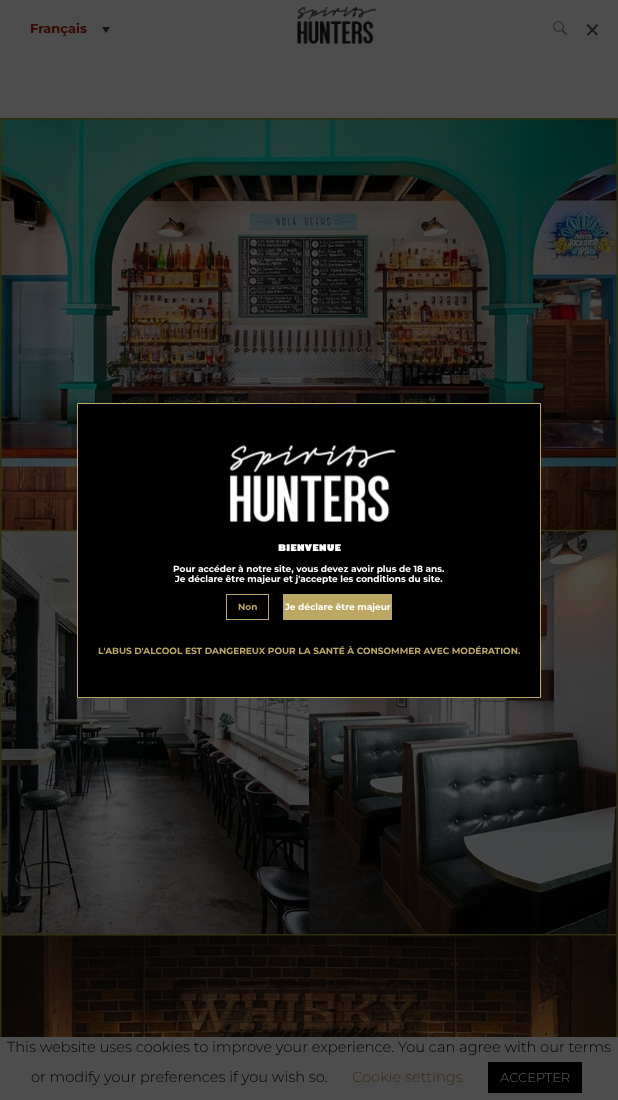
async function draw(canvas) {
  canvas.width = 618
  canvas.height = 1100
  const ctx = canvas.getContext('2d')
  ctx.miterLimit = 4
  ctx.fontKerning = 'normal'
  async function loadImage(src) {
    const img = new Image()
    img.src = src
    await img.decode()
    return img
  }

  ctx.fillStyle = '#4d4d4d'
  ctx.fillRect(0, 0, 618, 1100)
  ctx.font = 'bold 13px Montserrat'
  ctx.fillStyle = '#360800'
  ctx.fillText('Français', 30, 33)
  ctx.fillStyle = '#141414'
  ctx.beginPath()
  ctx.moveTo(102, 27)
  ctx.lineTo(110, 27)
  ctx.lineTo(106, 33)
  ctx.closePath()
  ctx.fill()
  ctx.drawImage(await loadImage('image0.png'), 297, 7, 80, 37)
  ctx.drawImage(await loadImage('image1.png'), 553, 21, 14, 14)
  ctx.fillStyle = '#1d1d1d'
  ctx.beginPath()
  ctx.moveTo(587, 34)
  ctx.lineTo(593.5, 27.5)
  ctx.bezierCurveTo(594, 27, 596.5, 23.5, 597.5, 24.5)
  ctx.bezierCurveTo(599, 25.5, 596.5, 27, 596.5, 27.5)
  ctx.lineTo(588.5, 35.5)
  ctx.bezierCurveTo(587.5, 36, 586.5, 34.5, 587, 34)
  ctx.closePath()
  ctx.fill()
  ctx.beginPath()
  ctx.moveTo(588.5, 24.5)
  ctx.lineTo(594.5, 30.5)
  ctx.bezierCurveTo(595, 31.5, 598.5, 33.5, 597.5, 35)
  ctx.bezierCurveTo(597, 36.5, 595, 34, 594.5, 33.5)
  ctx.lineTo(587, 26)
  ctx.bezierCurveTo(586, 25, 587.5, 23.5, 588.5, 24.5)
  ctx.closePath()
  ctx.fill()
  ctx.drawImage(await loadImage('image2.png'), 0, 118, 618, 919)
  ctx.fillStyle = '#000'
  ctx.beginPath()
  ctx.rect(77.5, 403.5, 463, 294)
  ctx.fill()
  ctx.strokeStyle = '#bca763'
  ctx.stroke()
  ctx.drawImage(await loadImage('image3.png'), 230, 445, 166, 77)
  ctx.font = '800 9px Gill Sans'
  ctx.fillStyle = '#fff'
  ctx.fillText('BIENVENUE', 278, 551)
  ctx.font = 'bold 9px Montserrat'
  ctx.fillText('Pour accéder à notre site, vous devez avoir plus de 18 ans.', 173, 572)
  ctx.fillText('Je déclare être majeur et j\'accepte les conditions du site.', 175, 582)
  ctx.strokeRect(226.5, 594.5, 42, 25)
  ctx.fillStyle = '#bca763'
  ctx.fillText('Non', 238, 610)
  ctx.fillRect(283, 594, 109, 26)
  ctx.fillStyle = '#fff'
  ctx.fillText('Je déclare être majeur', 285, 610)
  ctx.fillStyle = '#bca763'
  ctx.fillText('L\'ABUS D\'ALCOOL EST DANGEREUX POUR LA SANTÉ À CONSOMMER AVEC MODÉRATION.', 98, 654)
  ctx.font = '300 14.65px Montserrat'
  ctx.fillStyle = '#000'
  ctx.fillText('This website uses cookies to improve your experience. You can agree with our terms', 7, 1052)
  ctx.fillText('or modify your preferences if you wish so.', 31, 1082)
  ctx.fillStyle = '#372916'
  ctx.fillText('Cookie settings', 352, 1082)
  ctx.fillStyle = '#000'
  ctx.fillRect(488, 1062, 94, 31)
  ctx.font = '13px Montserrat'
  ctx.fillStyle = '#4d4d4d'
  ctx.fillText('ACCEPTER', 500, 1082)
}

draw(document.querySelector('canvas'))
